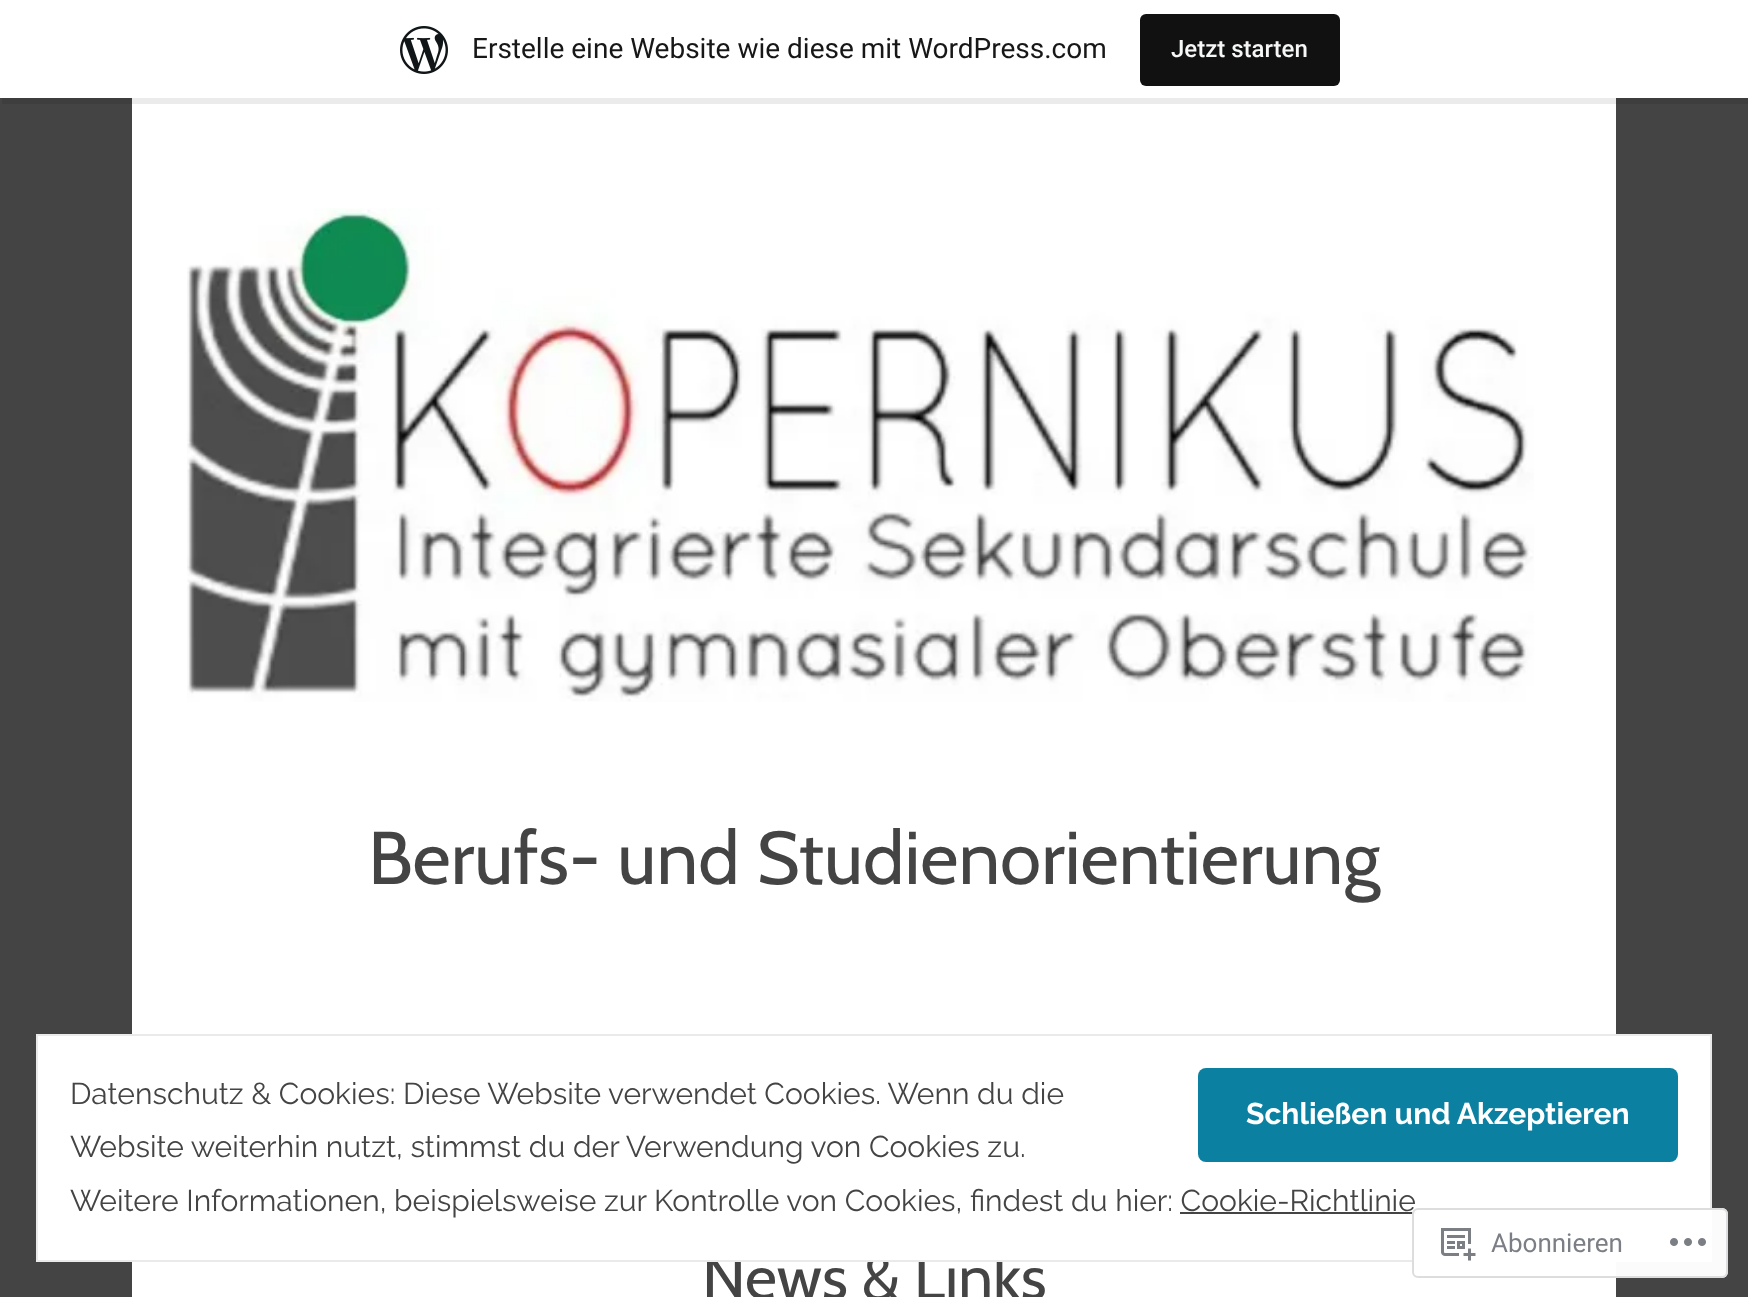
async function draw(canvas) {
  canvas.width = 1748
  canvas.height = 1297
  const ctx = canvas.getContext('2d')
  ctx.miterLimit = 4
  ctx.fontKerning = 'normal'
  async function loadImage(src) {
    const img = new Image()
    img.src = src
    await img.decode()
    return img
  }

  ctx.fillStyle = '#444'
  ctx.fillRect(0, 0, 1748, 1297)
  ctx.fillStyle = '#fff'
  ctx.fillRect(132, 98, 1484, 1199)
  ctx.fillStyle = '#00000014'
  ctx.beginPath()
  ctx.moveTo(2, 98)
  ctx.lineTo(2, 104)
  ctx.lineTo(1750, 104)
  ctx.lineTo(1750, 6)
  ctx.lineTo(1748, 6)
  ctx.lineTo(1748, 98)
  ctx.closePath()
  ctx.fill()
  ctx.fillStyle = '#fff'
  ctx.fillRect(0, 0, 1748, 98)
  ctx.drawImage(await loadImage('image0.png'), 400, 26, 48, 48)
  ctx.font = '28px Roboto'
  ctx.fillStyle = '#171717'
  ctx.fillText('Erstelle eine Website wie diese mit WordPress.com', 472, 58)
  ctx.fillStyle = '#111'
  ctx.beginPath()
  ctx.roundRect(1140, 14, 200, 72, 6)
  ctx.fill()
  ctx.font = '500 24px Roboto'
  ctx.fillStyle = '#f6f7f7'
  ctx.fillText('Jetzt starten', 1171, 57)
  ctx.drawImage(await loadImage('image1.png'), 187, 208, 1347, 494)
  ctx.font = '74.6px Cabin'
  ctx.fillStyle = '#444'
  ctx.fillText('Berufs- und Studienorientierung', 368, 884)
  ctx.font = '62.25px Cabin'
  ctx.fillText('News & Links', 702, 1299)
  ctx.fillStyle = '#fff'
  ctx.beginPath()
  ctx.rect(37, 1035, 1674, 226)
  ctx.fill()
  ctx.strokeStyle = '#eaeaea'
  ctx.lineWidth = 2
  ctx.stroke()
  ctx.font = '30px Raleway'
  ctx.fillStyle = '#444'
  ctx.fillText('Datenschutz & Cookies: Diese Website verwendet Cookies. Wenn du die', 70, 1104)
  ctx.fillStyle = '#0c80a1'
  ctx.beginPath()
  ctx.roundRect(1198, 1068, 480, 94, 8)
  ctx.fill()
  ctx.font = 'bold 30px Raleway'
  ctx.fillStyle = '#fff'
  ctx.fillText('Schließen und Akzeptieren', 1246, 1124)
  ctx.font = '30px Raleway'
  ctx.fillStyle = '#444'
  ctx.fillText('Website weiterhin nutzt, stimmst du der Verwendung von Cookies zu.', 70, 1157)
  ctx.fillText('Weitere Informationen, beispielsweise zur Kontrolle von Cookies, findest du hier: Cookie-Richtlinie', 70, 1211)
  ctx.fillRect(1180, 1212, 236, 2)
  ctx.fillStyle = '#fffffffa'
  ctx.beginPath()
  ctx.roundRect(1412, 1208, 316, 70, 6)
  ctx.fill()
  ctx.beginPath()
  ctx.roundRect(1413, 1209, 314, 68, 5)
  ctx.strokeStyle = '#dcdcdefa'
  ctx.stroke()
  ctx.drawImage(await loadImage('image2.png'), 1441, 1228, 35, 33)
  ctx.font = '26px Roboto'
  ctx.fillStyle = '#7b7f85'
  ctx.fillText('Abonnieren', 1491, 1252)
  ctx.drawImage(await loadImage('image3.png'), 1670, 1238, 36, 8)
}

draw(document.querySelector('canvas'))
